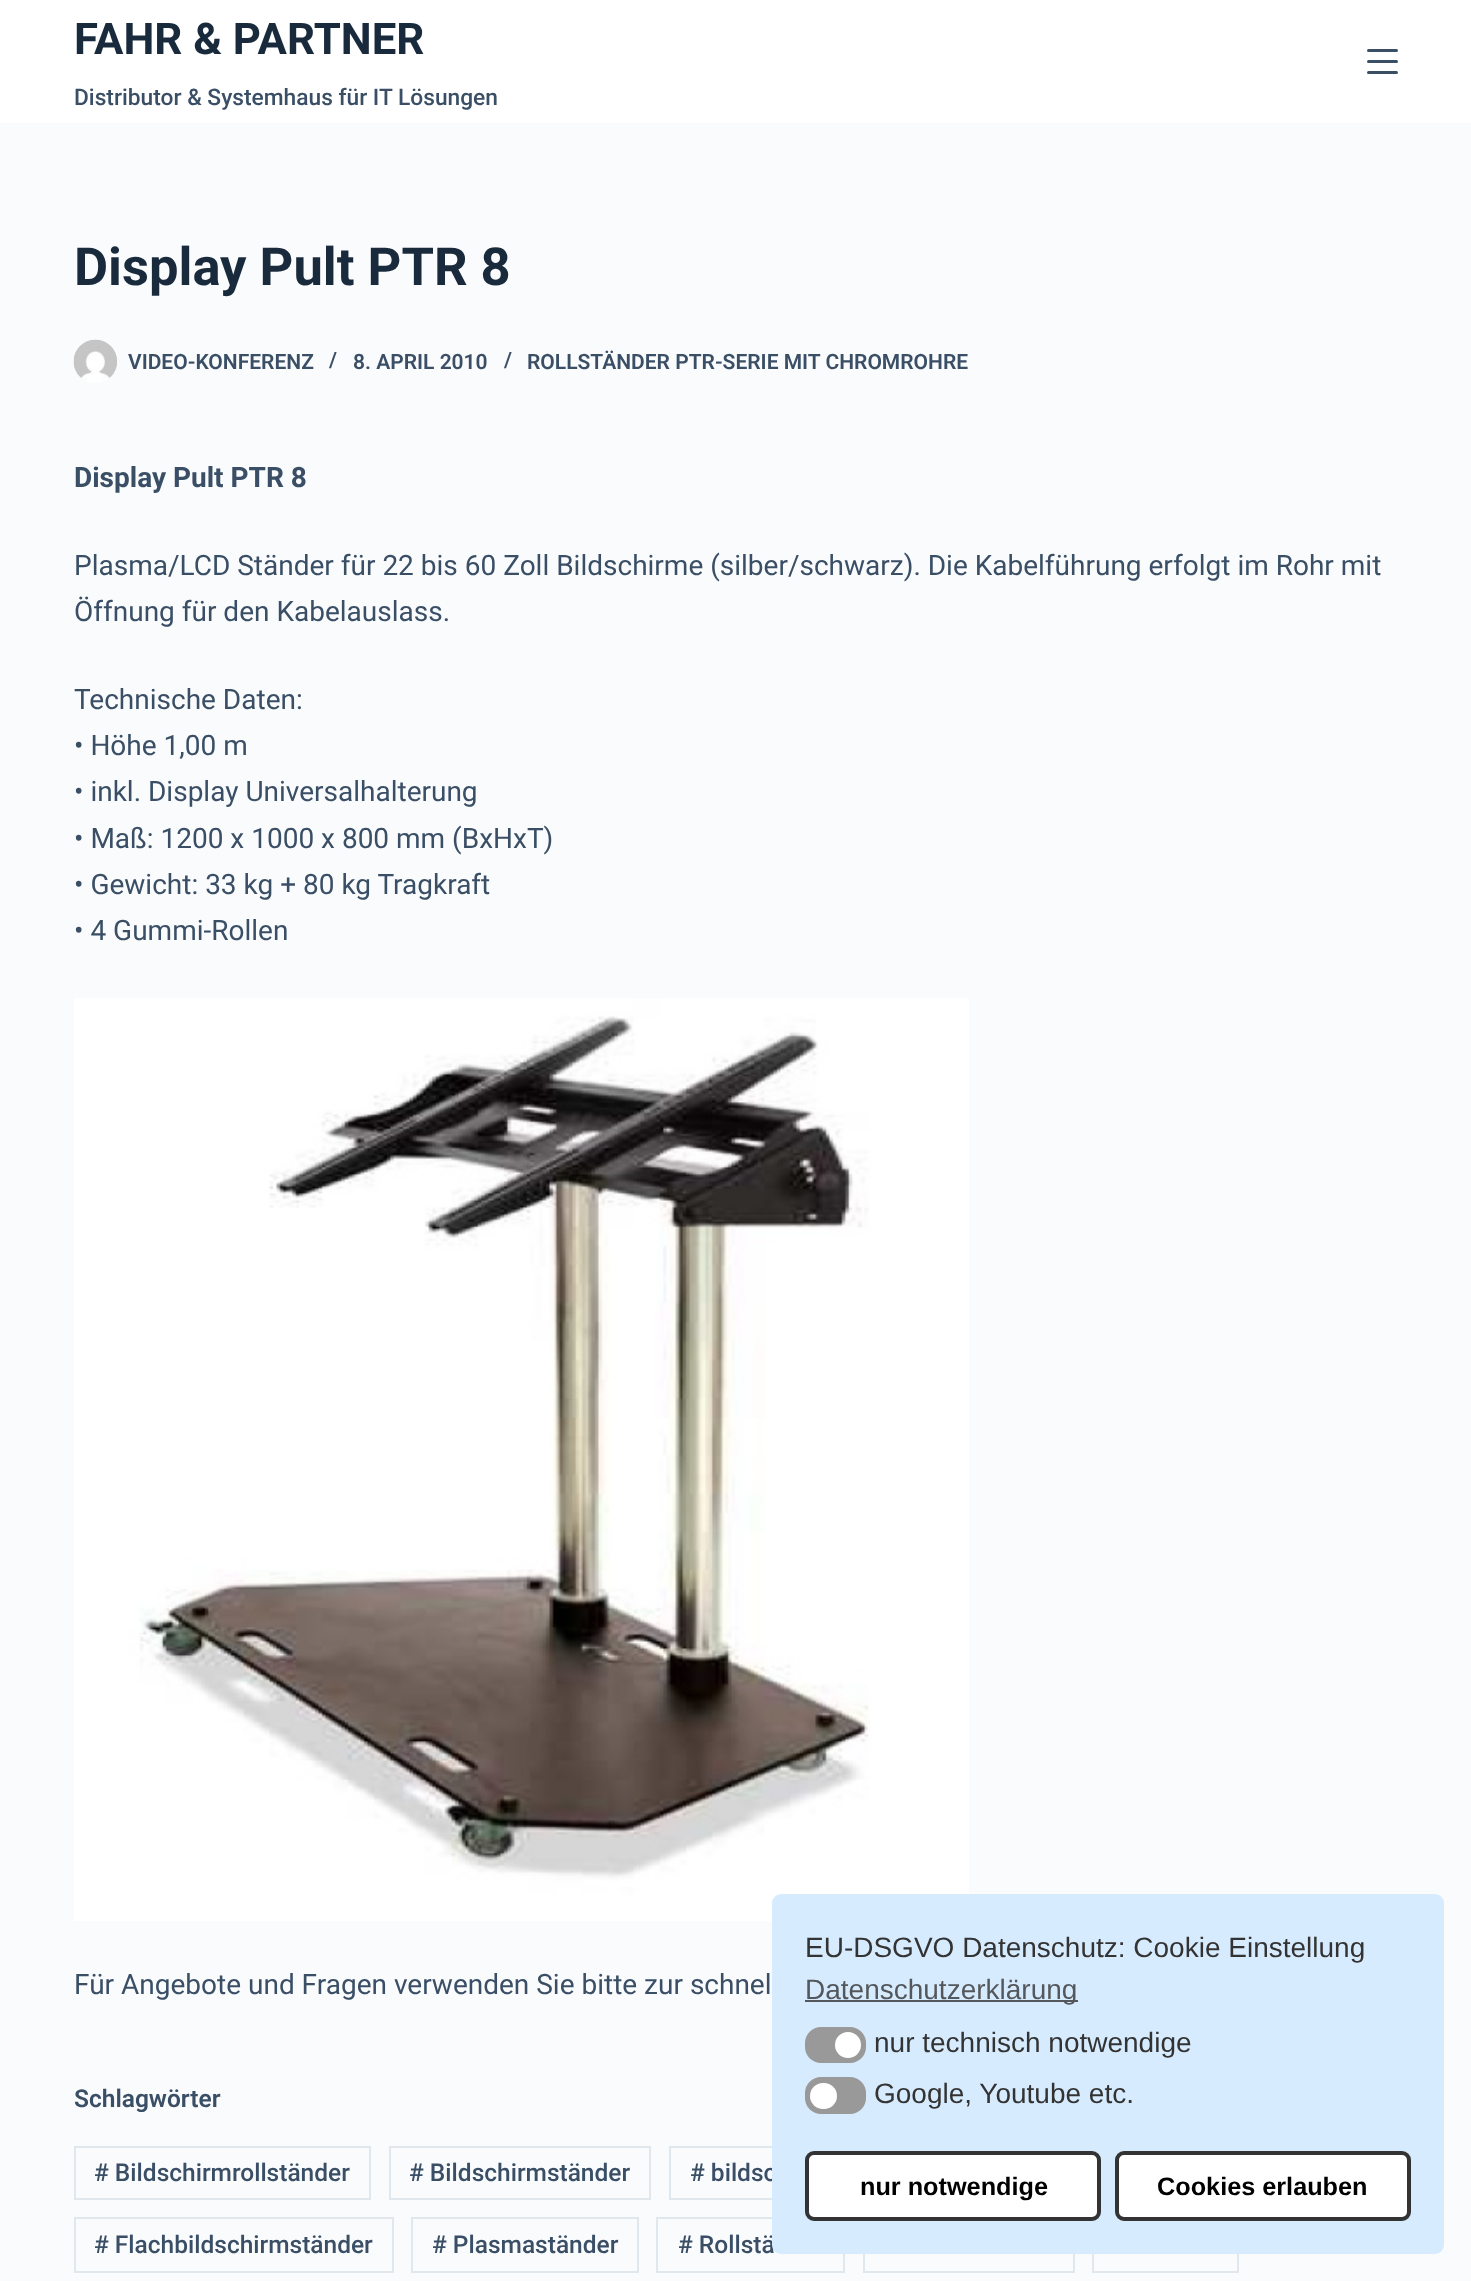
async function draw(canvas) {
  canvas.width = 1471
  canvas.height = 2281
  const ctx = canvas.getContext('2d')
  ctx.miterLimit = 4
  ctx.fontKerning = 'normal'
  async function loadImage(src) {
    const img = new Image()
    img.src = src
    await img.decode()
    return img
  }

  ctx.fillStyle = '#fafbfc'
  ctx.fillRect(0, 0, 1471, 2281)
  ctx.fillStyle = '#fff'
  ctx.fillRect(0, 0, 1471, 123)
  ctx.font = 'bold 43.75px Roboto'
  ctx.fillStyle = '#192a3d'
  ctx.fillText('FAHR & PARTNER', 74, 54)
  ctx.font = '500 22.75px Roboto'
  ctx.fillStyle = '#3a4f66'
  ctx.fillText('Distributor & Systemhaus für IT Lösungen', 74, 105)
  ctx.beginPath()
  ctx.roundRect(1367, 49, 31, 3, 1.5)
  ctx.fill()
  ctx.beginPath()
  ctx.roundRect(1367, 60, 31, 3, 1.5)
  ctx.fill()
  ctx.beginPath()
  ctx.roundRect(1367, 71, 31, 3, 1.5)
  ctx.fill()
  ctx.font = 'bold 52.5px Roboto'
  ctx.fillStyle = '#192a3d'
  ctx.fillText('Display Pult PTR 8', 74, 285)
  ctx.drawImage(await loadImage('image0.png'), 73, 339, 44, 44)
  ctx.font = '600 21px Roboto'
  ctx.fillStyle = '#3a4f66'
  ctx.fillText('VIDEO-KONFERENZ', 128, 369)
  ctx.fillText('/', 329, 367)
  ctx.fillText('8. APRIL 2010', 353, 369)
  ctx.fillText('/', 504, 367)
  ctx.fillText('ROLLSTÄNDER PTR-SERIE MIT CHROMROHRE', 527, 369)
  ctx.font = 'bold 28px Roboto'
  ctx.fillText('Display Pult PTR 8', 74, 487)
  ctx.font = '28px Roboto'
  ctx.fillText('Plasma/LCD Ständer für 22 bis 60 Zoll Bildschirme (silber/schwarz). Die Kabelführung erfolgt im Rohr mit', 74, 575)
  ctx.fillText('Öffnung für den Kabelauslass.', 74, 621)
  ctx.fillText('Technische Daten:', 74, 709)
  ctx.fillText('• Höhe 1,00 m', 74, 755)
  ctx.fillText('• inkl. Display Universalhalterung', 74, 801)
  ctx.fillText('• Maß: 1200 x 1000 x 800 mm (BxHxT)', 74, 848)
  ctx.fillText('• Gewicht: 33 kg + 80 kg Tragkraft', 74, 894)
  ctx.fillText('• 4 Gummi-Rollen', 74, 940)
  ctx.drawImage(await loadImage('image1.png'), 74, 998, 895, 923)
  ctx.fillText('Für Angebote und Fragen verwenden Sie bitte zur schnel', 74, 1994)
  ctx.font = '600 24.5px Roboto'
  ctx.fillText('Schlagwörter', 74, 2107)
  ctx.strokeStyle = '#e1e8ed'
  ctx.lineWidth = 2
  ctx.strokeRect(75, 2147, 295, 52)
  ctx.font = '500 24.5px Roboto'
  ctx.fillText('# Bildschirmrollständer', 94, 2181)
  ctx.strokeRect(390, 2147, 260, 52)
  ctx.fillText('# Bildschirmständer', 409, 2181)
  ctx.strokeRect(670, 2147, 285, 52)
  ctx.fillText('# bildsc', 690, 2181)
  ctx.strokeRect(75, 2218, 318, 54)
  ctx.fillText('# Flachbildschirmständer', 94, 2253)
  ctx.strokeRect(412, 2218, 226, 54)
  ctx.fillText('# Plasmaständer', 432, 2253)
  ctx.strokeRect(657, 2218, 187, 54)
  ctx.fillText('# Rollstä', 678, 2253)
  ctx.strokeRect(864, 2218, 210, 54)
  ctx.strokeRect(1093, 2218, 145, 54)
  ctx.fillStyle = '#d7ebff'
  ctx.beginPath()
  ctx.roundRect(772, 1894, 672, 360, 9)
  ctx.fill()
  ctx.font = '28px Liberation Sans'
  ctx.fillStyle = '#333'
  ctx.fillText('EU-DSGVO Datenschutz: Cookie Einstellung', 805, 1957)
  ctx.fillStyle = '#54585c'
  ctx.fillRect(805, 2000, 273, 2)
  ctx.fillText('Datenschutzerklärung', 805, 1999)
  ctx.fillStyle = '#999'
  ctx.beginPath()
  ctx.roundRect(805, 2027, 61, 36, 16)
  ctx.fill()
  ctx.fillStyle = '#fff'
  ctx.beginPath()
  ctx.arc(848, 2045, 13, 0, 2 * Math.PI)
  ctx.fill()
  ctx.fillStyle = '#333'
  ctx.fillText('nur technisch notwendige', 874, 2052)
  ctx.fillStyle = '#999'
  ctx.beginPath()
  ctx.roundRect(805, 2077, 61, 37, 16)
  ctx.fill()
  ctx.fillStyle = '#fff'
  ctx.beginPath()
  ctx.roundRect(810, 2083, 27, 26, 13)
  ctx.fill()
  ctx.fillStyle = '#333'
  ctx.fillText('Google, Youtube etc.', 874, 2103)
  ctx.fillStyle = '#fff'
  ctx.beginPath()
  ctx.roundRect(807, 2153, 292, 66, 7)
  ctx.fill()
  ctx.strokeStyle = '#333'
  ctx.lineWidth = 4
  ctx.stroke()
  ctx.font = 'bold 25.25px Liberation Sans'
  ctx.fillStyle = '#000'
  ctx.fillText('nur notwendige', 860, 2195)
  ctx.fillStyle = '#fff'
  ctx.beginPath()
  ctx.roundRect(1117, 2153, 292, 66, 7)
  ctx.fill()
  ctx.stroke()
  ctx.fillStyle = '#000'
  ctx.fillText('Cookies erlauben', 1157, 2195)
}

draw(document.querySelector('canvas'))
